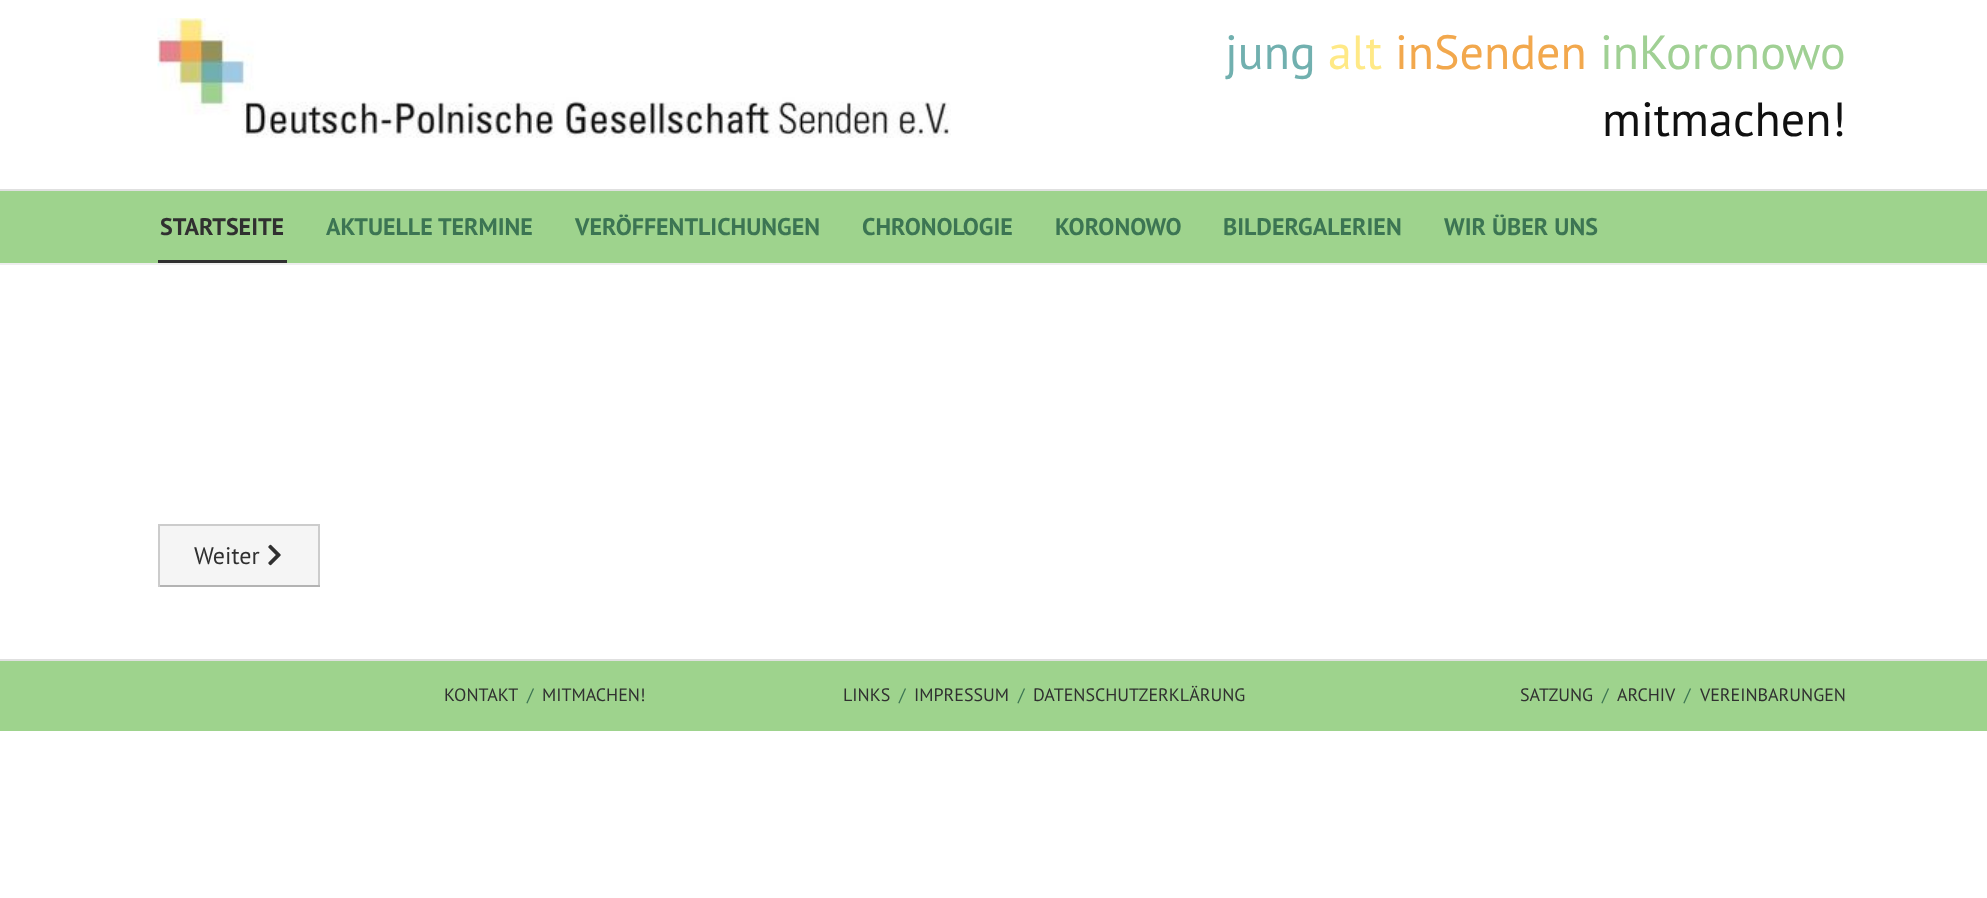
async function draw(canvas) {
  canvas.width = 1987
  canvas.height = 898
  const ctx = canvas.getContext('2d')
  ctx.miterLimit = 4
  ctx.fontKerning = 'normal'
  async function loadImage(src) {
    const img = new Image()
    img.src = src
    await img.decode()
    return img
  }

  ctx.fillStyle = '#fff'
  ctx.fillRect(0, 0, 1987, 898)
  ctx.fillStyle = '#e0e0e0'
  ctx.fillRect(0, 189, 1987, 2)
  ctx.drawImage(await loadImage('image0.png'), 157, 18, 794, 120)
  ctx.font = '48px PT Sans'
  ctx.fillStyle = '#71b0af'
  ctx.fillText('jung', 1225, 69)
  ctx.fillStyle = '#ffe986'
  ctx.fillText('alt', 1328, 69)
  ctx.fillStyle = '#f2a84d'
  ctx.fillText('inSenden', 1395, 69)
  ctx.fillStyle = '#a0d094'
  ctx.fillText('inKoronowo', 1600, 69)
  ctx.fillStyle = '#101010'
  ctx.fillText('mitmachen!', 1602, 136)
  ctx.fillStyle = '#9ed38d'
  ctx.fillRect(0, 191, 1987, 72)
  ctx.fillStyle = '#eee'
  ctx.fillRect(0, 263, 1987, 2)
  ctx.font = 'bold 24px PT Sans'
  ctx.fillStyle = '#303030'
  ctx.fillText('STARTSEITE', 160, 235)
  ctx.fillRect(158, 260, 129, 3)
  ctx.fillStyle = '#3c7553'
  ctx.fillText('AKTUELLE TERMINE', 326, 235)
  ctx.fillText('VERÖFFENTLICHUNGEN', 575, 235)
  ctx.fillText('CHRONOLOGIE', 862, 235)
  ctx.fillText('KORONOWO', 1055, 235)
  ctx.fillText('BILDERGALERIEN', 1223, 235)
  ctx.fillText('WIR ÜBER UNS', 1444, 235)
  ctx.fillStyle = '#f5f5f5'
  ctx.fillRect(160, 526, 158, 59)
  ctx.fillStyle = '#ccc'
  ctx.fillRect(158, 524, 162, 2)
  ctx.fillRect(318, 524, 2, 63)
  ctx.fillStyle = '#b3b3b3'
  ctx.fillRect(158, 585, 162, 2)
  ctx.fillStyle = '#ccc'
  ctx.fillRect(158, 524, 2, 63)
  ctx.font = '24px PT Sans'
  ctx.fillStyle = '#303030'
  ctx.fillText('Weiter', 194, 564)
  ctx.drawImage(await loadImage('image1.png'), 268, 544, 13, 22)
  ctx.fillStyle = '#9ed38d'
  ctx.fillRect(0, 661, 1987, 70)
  ctx.fillStyle = '#e0e0e0'
  ctx.fillRect(0, 659, 1987, 2)
  ctx.font = '18px PT Sans'
  ctx.fillStyle = '#303030'
  ctx.fillText('KONTAKT', 444, 701)
  ctx.fillStyle = '#3c7553'
  ctx.fillText('/', 527, 701)
  ctx.fillStyle = '#303030'
  ctx.fillText('MITMACHEN!', 542, 701)
  ctx.fillText('LINKS', 843, 701)
  ctx.fillStyle = '#3c7553'
  ctx.fillText('/', 899, 701)
  ctx.fillStyle = '#303030'
  ctx.fillText('IMPRESSUM', 914, 701)
  ctx.fillStyle = '#3c7553'
  ctx.fillText('/', 1018, 701)
  ctx.fillStyle = '#303030'
  ctx.fillText('DATENSCHUTZERKLÄRUNG', 1033, 701)
  ctx.fillText('SATZUNG', 1520, 701)
  ctx.fillStyle = '#3c7553'
  ctx.fillText('/', 1602, 701)
  ctx.fillStyle = '#303030'
  ctx.fillText('ARCHIV', 1617, 701)
  ctx.fillStyle = '#3c7553'
  ctx.fillText('/', 1684, 701)
  ctx.fillStyle = '#303030'
  ctx.fillText('VEREINBARUNGEN', 1700, 701)
}

draw(document.querySelector('canvas'))
